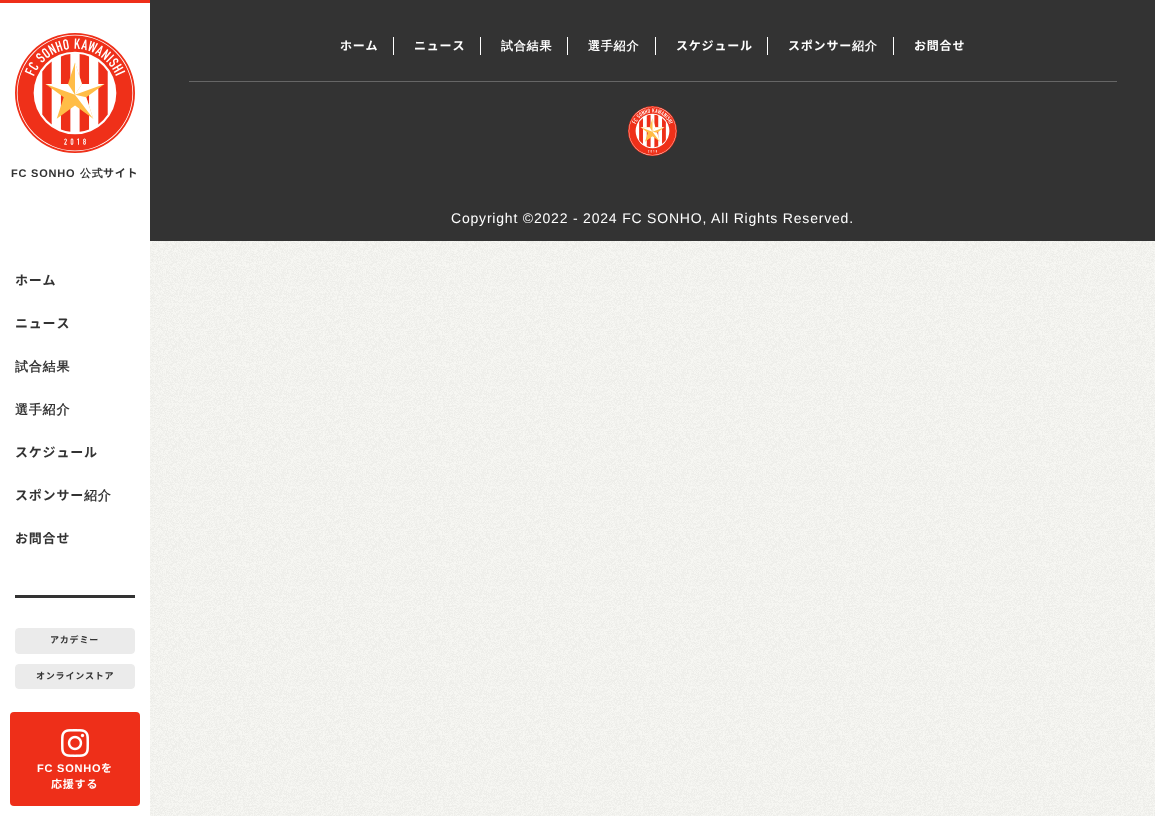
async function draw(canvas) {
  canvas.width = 1155
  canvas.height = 816
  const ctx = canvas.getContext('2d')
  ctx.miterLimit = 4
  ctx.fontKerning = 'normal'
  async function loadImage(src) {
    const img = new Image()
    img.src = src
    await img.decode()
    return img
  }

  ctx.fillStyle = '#f8f8f4'
  ctx.fillRect(0, 0, 1155, 816)
  ctx.drawImage(await loadImage('image0.png'), 150, 241, 1005, 575)
  ctx.fillStyle = '#333'
  ctx.fillRect(150, 0, 1005, 241)
  ctx.fillStyle = '#fff'
  ctx.fillRect(393, 37, 1, 18)
  ctx.letterSpacing = '0.8px'
  ctx.font = 'bold 12px Noto Sans JP'
  ctx.fillText('ホーム', 340, 50)
  ctx.fillRect(480, 37, 1, 18)
  ctx.fillText('ニュース', 414, 50)
  ctx.fillRect(567, 37, 1, 18)
  ctx.font = 'bold 12px WenQuanYi Zen Hei'
  ctx.fillText('試合結果', 501, 50)
  ctx.fillRect(655, 37, 1, 18)
  ctx.fillText('選手紹介', 588, 50)
  ctx.fillRect(767, 37, 1, 18)
  ctx.font = 'bold 12px Noto Sans JP'
  ctx.fillText('スケジュール', 676, 50)
  ctx.fillRect(893, 37, 1, 18)
  ctx.fillText('スポンサー', 788, 50)
  ctx.font = 'bold 12px WenQuanYi Zen Hei'
  ctx.fillText('紹介', 852, 50)
  ctx.font = 'bold 12px Noto Sans JP'
  ctx.fillText('お問合せ', 914, 50)
  ctx.fillStyle = '#666'
  ctx.fillRect(189, 81, 928, 1)
  ctx.drawImage(await loadImage('image1.png'), 628, 106, 49, 50)
  ctx.font = '14px Liberation Sans'
  ctx.fillStyle = '#fff'
  ctx.fillText('Copyright ©2022 - 2024 FC SONHO, All Rights Reserved.', 451, 223)
  ctx.fillRect(0, 3, 150, 813)
  ctx.fillStyle = '#ee2f19'
  ctx.fillRect(0, 0, 150, 3)
  ctx.drawImage(await loadImage('image2.png'), 15, 33, 120, 120)
  ctx.font = 'bold 11px Liberation Sans'
  ctx.fillStyle = '#333'
  ctx.fillText('FC SONHO', 11, 177)
  ctx.font = 'bold 11px WenQuanYi Zen Hei'
  ctx.fillText('公式', 80, 177)
  ctx.font = 'bold 11px Noto Sans JP'
  ctx.fillText('サイト', 103, 177)
  ctx.fillRect(15, 595, 120, 3)
  ctx.font = 'bold 13px Noto Sans JP'
  ctx.fillText('ホーム', 15, 285)
  ctx.fillText('ニュース', 15, 328)
  ctx.font = 'bold 13px WenQuanYi Zen Hei'
  ctx.fillText('試合結果', 15, 371)
  ctx.fillText('選手紹介', 15, 414)
  ctx.font = 'bold 13px Noto Sans JP'
  ctx.fillText('スケジュール', 15, 457)
  ctx.fillText('スポンサー', 15, 500)
  ctx.font = 'bold 13px WenQuanYi Zen Hei'
  ctx.fillText('紹介', 84, 500)
  ctx.font = 'bold 13px Noto Sans JP'
  ctx.fillText('お問合せ', 15, 543)
  ctx.fillStyle = '#ebebeb'
  ctx.beginPath()
  ctx.roundRect(15.5, 628.5, 119, 25, 3.5)
  ctx.fill()
  ctx.strokeStyle = '#ebebeb'
  ctx.stroke()
  ctx.font = 'bold 9px Noto Sans JP'
  ctx.fillStyle = '#333'
  ctx.fillText('アカデミー', 50, 643)
  ctx.fillStyle = '#ebebeb'
  ctx.beginPath()
  ctx.roundRect(15.5, 664.5, 119, 24, 3.5)
  ctx.fill()
  ctx.stroke()
  ctx.fillStyle = '#333'
  ctx.fillText('オンラインストア', 36, 679)
  ctx.fillStyle = '#ee2f19'
  ctx.beginPath()
  ctx.roundRect(10, 712, 130, 94, 4)
  ctx.fill()
  ctx.drawImage(await loadImage('image3.png'), 61, 729, 28, 28)
  ctx.font = 'bold 11px Liberation Sans'
  ctx.fillStyle = '#fff'
  ctx.fillText('FC SONHO', 37, 772)
  ctx.font = 'bold 11px Noto Sans JP'
  ctx.fillText('を', 101, 772)
  ctx.fillText('応援する', 51, 788)
}

draw(document.querySelector('canvas'))
